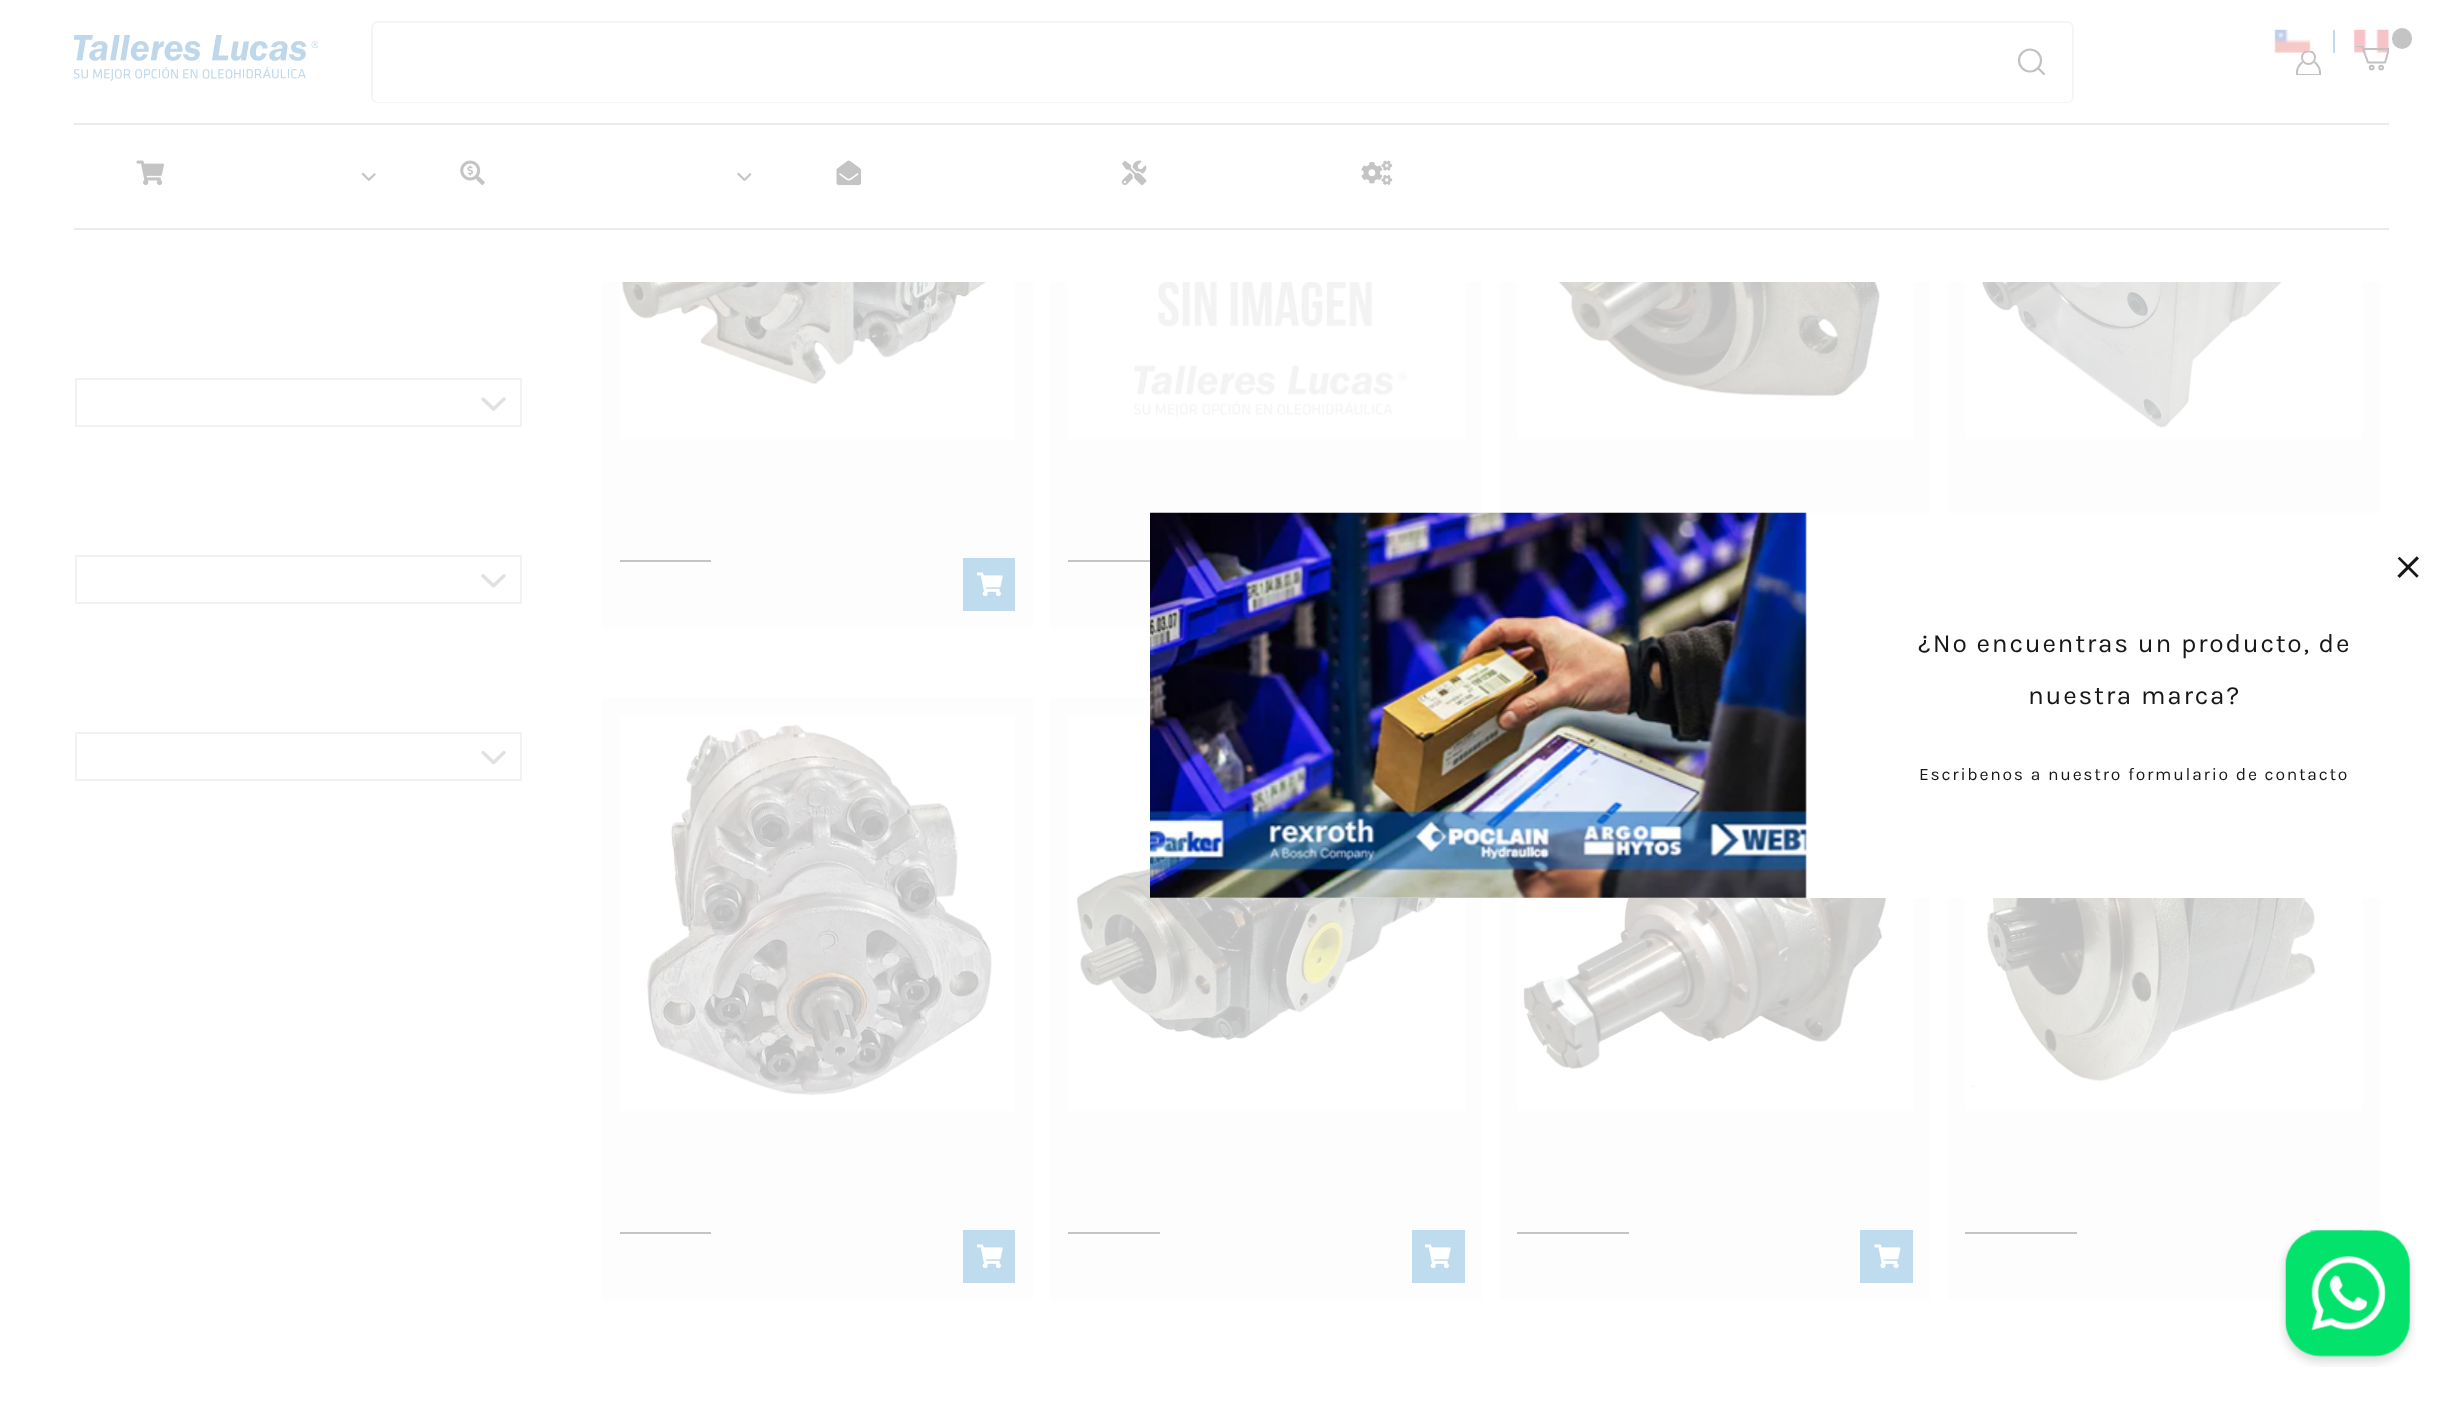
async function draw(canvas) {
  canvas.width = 2462
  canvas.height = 1408
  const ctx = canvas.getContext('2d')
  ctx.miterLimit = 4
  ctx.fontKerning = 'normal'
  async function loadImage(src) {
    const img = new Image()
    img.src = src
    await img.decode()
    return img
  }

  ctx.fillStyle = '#fff'
  ctx.fillRect(0, 0, 2462, 1408)
  ctx.beginPath()
  ctx.roundRect(372, 22, 1701, 80, 6)
  ctx.strokeStyle = '#d6d6d6'
  ctx.lineWidth = 2
  ctx.stroke()
  ctx.beginPath()
  ctx.roundRect(373, 23, 1620, 79, [5, 0, 0, 5])
  ctx.fill()
  ctx.beginPath()
  ctx.roundRect(1993, 23, 79, 79, [0, 5, 5, 0])
  ctx.fill()
  ctx.beginPath()
  ctx.arc(2030, 60.5, 11, 0, 2 * Math.PI)
  ctx.strokeStyle = '#0a0a0a'
  ctx.lineWidth = 2.2
  ctx.stroke()
  ctx.beginPath()
  ctx.moveTo(2044, 74)
  ctx.lineTo(2038, 68)
  ctx.lineCap = 'round'
  ctx.lineJoin = 'round'
  ctx.stroke()
  ctx.drawImage(await loadImage('image1.png'), 2274, 29, 37, 24)
  ctx.save()
  ctx.beginPath()
  ctx.rect(2296, 51, 25, 24)
  ctx.clip()
  ctx.beginPath()
  ctx.arc(2308.5, 57.5, 6.5, 0, 2 * Math.PI)
  ctx.lineWidth = 2
  ctx.stroke()
  ctx.beginPath()
  ctx.moveTo(2302, 62.5)
  ctx.bezierCurveTo(2298.5, 65.5, 2296.5, 70, 2297, 75)
  ctx.lineTo(2320, 75)
  ctx.bezierCurveTo(2320.5, 70, 2318.5, 65.5, 2315, 62.5)
  ctx.stroke()
  ctx.restore()
  ctx.fillStyle = '#171717'
  ctx.beginPath()
  ctx.roundRect(2392, 28, 20, 21, 10)
  ctx.fill()
  ctx.drawImage(await loadImage('image2.png'), 2354, 29, 36, 24)
  ctx.save()
  ctx.beginPath()
  ctx.rect(2356, 46, 33, 26)
  ctx.clip()
  ctx.beginPath()
  ctx.moveTo(2356.5, 46)
  ctx.lineTo(2362, 46)
  ctx.lineTo(2368, 62.5)
  ctx.lineTo(2385, 62.5)
  ctx.lineTo(2389, 49)
  ctx.lineTo(2363.5, 49)
  ctx.lineWidth = 2
  ctx.stroke()
  ctx.restore()
  ctx.beginPath()
  ctx.arc(2371.7, 67.6, 1.9, 0, 2 * Math.PI)
  ctx.lineWidth = 2
  ctx.stroke()
  ctx.beginPath()
  ctx.arc(2381.1, 67.6, 1.9, 0, 2 * Math.PI)
  ctx.stroke()
  ctx.drawImage(await loadImage('image0.png'), 74, 35, 244, 46)
  ctx.fillStyle = '#0070ba'
  ctx.fillRect(2333, 30, 2, 23)
  ctx.fillStyle = '#afafaf'
  ctx.fillRect(74, 123, 2315, 2)
  ctx.fillRect(74, 228, 2315, 2)
  ctx.drawImage(await loadImage('image3.png'), 136, 160, 28, 25)
  ctx.fillStyle = '#171717'
  ctx.beginPath()
  ctx.moveTo(374.5, 173)
  ctx.lineTo(376, 174.5)
  ctx.lineTo(369, 181)
  ctx.lineTo(367.5, 179.5)
  ctx.closePath()
  ctx.fill()
  ctx.beginPath()
  ctx.moveTo(363, 172.5)
  ctx.lineTo(370, 179.5)
  ctx.lineTo(368.5, 181)
  ctx.lineTo(361.5, 174)
  ctx.closePath()
  ctx.fill()
  ctx.drawImage(await loadImage('image4.png'), 460, 160, 25, 25)
  ctx.beginPath()
  ctx.moveTo(750, 173)
  ctx.lineTo(751.5, 174.5)
  ctx.lineTo(745, 181)
  ctx.lineTo(743.5, 179.5)
  ctx.closePath()
  ctx.fill()
  ctx.beginPath()
  ctx.moveTo(738.5, 172.5)
  ctx.lineTo(745.5, 179.5)
  ctx.lineTo(744, 181)
  ctx.lineTo(737, 174)
  ctx.closePath()
  ctx.fill()
  ctx.drawImage(await loadImage('image5.png'), 836, 160, 25, 26)
  ctx.drawImage(await loadImage('image6.png'), 1121, 160, 26, 25)
  ctx.drawImage(await loadImage('image7.png'), 1361, 160, 32, 25)
  ctx.strokeStyle = '#ccc'
  ctx.lineJoin = 'miter'
  ctx.strokeRect(76, 379, 445, 47)
  ctx.drawImage(await loadImage('image8.png'), 481, 397, 25, 14)
  ctx.strokeRect(76, 556, 445, 47)
  ctx.drawImage(await loadImage('image9.png'), 481, 574, 25, 14)
  ctx.strokeRect(76, 733, 445, 47)
  ctx.drawImage(await loadImage('image10.png'), 481, 750, 25, 15)
  ctx.fillStyle = '#f5f5f5'
  ctx.fillRect(602, 282, 431, 346)
  ctx.drawImage(await loadImage('image11.png'), 619, 282, 396, 157)
  ctx.fillStyle = '#171717'
  ctx.fillRect(620, 560, 91, 2)
  ctx.fillStyle = '#0070ba'
  ctx.fillRect(963, 558, 52, 53)
  ctx.drawImage(await loadImage('image12.png'), 977, 572, 26, 25)
  ctx.fillStyle = '#f5f5f5'
  ctx.fillRect(1050, 282, 432, 346)
  ctx.drawImage(await loadImage('image13.png'), 1067, 282, 398, 157)
  ctx.fillStyle = '#171717'
  ctx.fillRect(1068, 560, 82, 2)
  ctx.fillStyle = '#f5f5f5'
  ctx.fillRect(1500, 282, 430, 231)
  ctx.drawImage(await loadImage('image14.png'), 1517, 282, 396, 157)
  ctx.fillRect(1948, 282, 432, 231)
  ctx.drawImage(await loadImage('image15.png'), 1965, 282, 398, 157)
  ctx.fillRect(602, 698, 431, 602)
  ctx.drawImage(await loadImage('image16.png'), 619, 715, 396, 396)
  ctx.fillStyle = '#171717'
  ctx.fillRect(620, 1232, 91, 2)
  ctx.fillStyle = '#0070ba'
  ctx.fillRect(963, 1230, 52, 53)
  ctx.drawImage(await loadImage('image12.png'), 977, 1244, 26, 25)
  ctx.fillStyle = '#f5f5f5'
  ctx.fillRect(1050, 698, 432, 602)
  ctx.drawImage(await loadImage('image17.png'), 1067, 715, 398, 396)
  ctx.fillStyle = '#171717'
  ctx.fillRect(1068, 1232, 92, 2)
  ctx.fillStyle = '#0070ba'
  ctx.fillRect(1412, 1230, 53, 53)
  ctx.drawImage(await loadImage('image12.png'), 1425, 1244, 26, 25)
  ctx.fillStyle = '#f5f5f5'
  ctx.fillRect(1500, 898, 430, 402)
  ctx.drawImage(await loadImage('image18.png'), 1517, 898, 396, 213)
  ctx.fillStyle = '#171717'
  ctx.fillRect(1517, 1232, 112, 2)
  ctx.fillStyle = '#0070ba'
  ctx.fillRect(1860, 1230, 53, 53)
  ctx.drawImage(await loadImage('image19.png'), 1874, 1244, 27, 25)
  ctx.fillStyle = '#f5f5f5'
  ctx.fillRect(1948, 898, 432, 402)
  ctx.drawImage(await loadImage('image20.png'), 1965, 898, 398, 213)
  ctx.fillStyle = '#171717'
  ctx.fillRect(1965, 1232, 112, 2)
  ctx.fillStyle = '#0070ba'
  ctx.fillRect(2310, 1230, 53, 3)
  ctx.strokeStyle = '#ffffffbf'
  ctx.lineWidth = 7387
  ctx.strokeRect(-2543.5, -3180.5, 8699, 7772)
  ctx.fillStyle = '#fff'
  ctx.fillRect(1150, 513, 332, 385)
  ctx.drawImage(await loadImage('image21.png'), 1150, 512, 657, 386)
  ctx.letterSpacing = '1.75px'
  ctx.font = '300 56px Karla'
  ctx.fillStyle = '#171717'
  ctx.save()
  ctx.translate(2388, 567)
  ctx.rotate(45 * Math.PI / 180)
  ctx.fillText('+', 0, 0)
  ctx.restore()
  ctx.font = '26.25px Karla'
  ctx.fillText('¿No encuentras un producto, de', 1918, 652)
  ctx.fillText('nuestra marca?', 2028, 704)
  ctx.font = '17.5px Karla'
  ctx.fillText('Escribenos a nuestro formulario de contacto', 1919, 780)
  ctx.drawImage(await loadImage('image22.png'), 2279, 1229, 136, 138)
}

draw(document.querySelector('canvas'))
